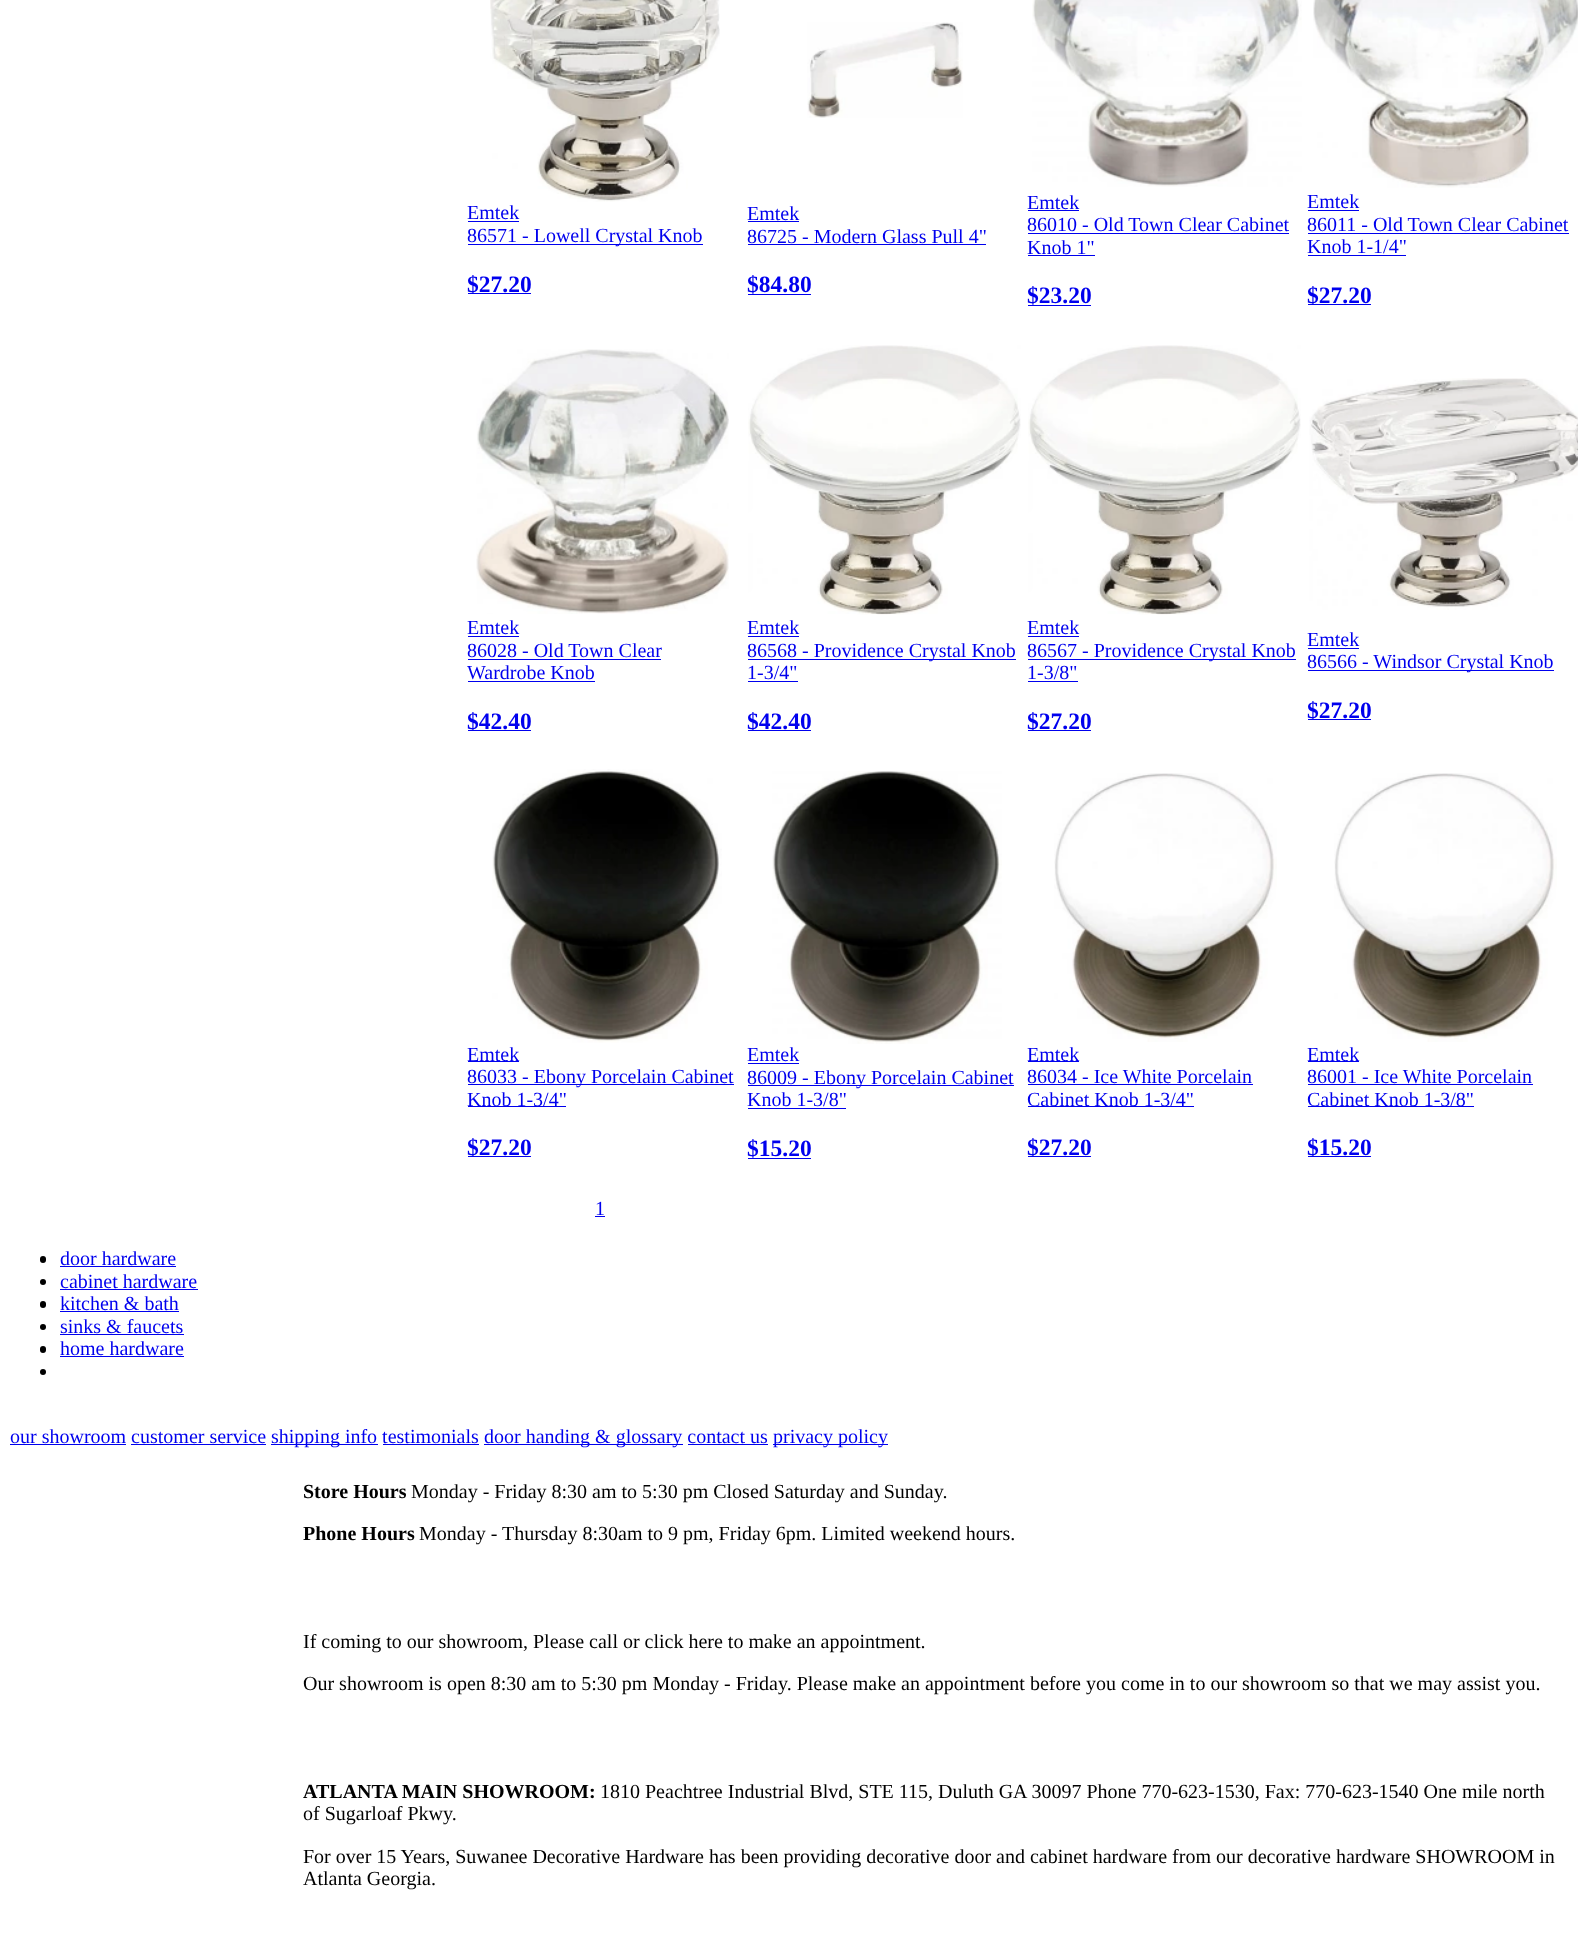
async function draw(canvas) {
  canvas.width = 1578
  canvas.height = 1944
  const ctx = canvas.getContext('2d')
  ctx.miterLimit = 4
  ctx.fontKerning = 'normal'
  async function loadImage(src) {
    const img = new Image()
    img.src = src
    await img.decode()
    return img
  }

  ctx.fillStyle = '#fff'
  ctx.fillRect(0, 0, 1578, 1944)
  ctx.drawImage(await loadImage('image0.png'), 490, 0, 230, 202)
  ctx.font = '20px Liberation Serif'
  ctx.fillStyle = '#00e'
  ctx.fillText('Emtek', 467, 219)
  ctx.fillRect(468, 221, 51, 1)
  ctx.fillRect(468, 244, 235, 1)
  ctx.fillText('86571 - Lowell Crystal Knob', 467, 242)
  ctx.fillRect(468, 293, 63, 1)
  ctx.font = 'bold 23.5px Liberation Serif'
  ctx.fillText('$27.20', 467, 292)
  ctx.drawImage(await loadImage('image1.png'), 807, 22, 156, 96)
  ctx.font = '20px Liberation Serif'
  ctx.fillText('Emtek', 747, 220)
  ctx.fillRect(748, 221, 51, 1)
  ctx.fillText('86725 - Modern Glass Pull 4"', 747, 243)
  ctx.fillRect(748, 244, 238, 1)
  ctx.font = 'bold 23.5px Liberation Serif'
  ctx.fillText('$84.80', 747, 292)
  ctx.fillRect(748, 294, 63, 1)
  ctx.drawImage(await loadImage('image2.png'), 1032, 0, 270, 187)
  ctx.font = '20px Liberation Serif'
  ctx.fillText('Emtek', 1027, 209)
  ctx.fillRect(1028, 210, 51, 1)
  ctx.fillText('86010 - Old Town Clear Cabinet', 1027, 231)
  ctx.fillRect(1028, 233, 261, 1)
  ctx.fillText('Knob 1"', 1027, 254)
  ctx.fillRect(1028, 255, 67, 1)
  ctx.font = 'bold 23.5px Liberation Serif'
  ctx.fillText('$23.20', 1027, 303)
  ctx.fillRect(1028, 305, 63, 1)
  ctx.drawImage(await loadImage('image3.png'), 1313, 0, 265, 188)
  ctx.font = '20px Liberation Serif'
  ctx.fillText('Emtek', 1307, 208)
  ctx.fillRect(1308, 210, 51, 1)
  ctx.fillText('86011 - Old Town Clear Cabinet', 1307, 231)
  ctx.fillRect(1308, 233, 261, 1)
  ctx.fillText('Knob 1-1/4"', 1307, 253)
  ctx.fillRect(1308, 255, 98, 1)
  ctx.fillRect(1308, 304, 63, 1)
  ctx.font = 'bold 23.5px Liberation Serif'
  ctx.fillText('$27.20', 1307, 303)
  ctx.drawImage(await loadImage('image4.png'), 476, 349, 253, 265)
  ctx.font = '20px Liberation Serif'
  ctx.fillText('Emtek', 467, 634)
  ctx.fillRect(468, 636, 51, 1)
  ctx.fillText('86028 - Old Town Clear', 467, 657)
  ctx.fillRect(468, 659, 193, 1)
  ctx.fillText('Wardrobe Knob', 467, 679)
  ctx.fillRect(468, 681, 127, 1)
  ctx.fillRect(468, 730, 63, 1)
  ctx.font = 'bold 23.5px Liberation Serif'
  ctx.fillText('$42.40', 467, 729)
  ctx.drawImage(await loadImage('image5.png'), 748, 345, 273, 270)
  ctx.font = '20px Liberation Serif'
  ctx.fillText('Emtek', 747, 634)
  ctx.fillRect(748, 636, 51, 1)
  ctx.fillRect(748, 659, 268, 1)
  ctx.fillText('86568 - Providence Crystal Knob', 747, 657)
  ctx.fillText('1-3/4"', 747, 679)
  ctx.fillRect(748, 681, 50, 1)
  ctx.fillRect(748, 730, 63, 1)
  ctx.font = 'bold 23.5px Liberation Serif'
  ctx.fillText('$42.40', 747, 729)
  ctx.drawImage(await loadImage('image6.png'), 1028, 345, 273, 270)
  ctx.font = '20px Liberation Serif'
  ctx.fillText('Emtek', 1027, 634)
  ctx.fillRect(1028, 636, 51, 1)
  ctx.fillRect(1028, 659, 268, 1)
  ctx.fillText('86567 - Providence Crystal Knob', 1027, 657)
  ctx.fillText('1-3/8"', 1027, 679)
  ctx.fillRect(1028, 681, 50, 1)
  ctx.fillRect(1028, 730, 63, 1)
  ctx.font = 'bold 23.5px Liberation Serif'
  ctx.fillText('$27.20', 1027, 729)
  ctx.drawImage(await loadImage('image7.png'), 1309, 378, 269, 232)
  ctx.font = '20px Liberation Serif'
  ctx.fillText('Emtek', 1307, 646)
  ctx.fillRect(1308, 648, 51, 1)
  ctx.fillRect(1308, 670, 246, 1)
  ctx.fillText('86566 - Windsor Crystal Knob', 1307, 668)
  ctx.fillRect(1308, 719, 63, 1)
  ctx.font = 'bold 23.5px Liberation Serif'
  ctx.fillText('$27.20', 1307, 718)
  ctx.drawImage(await loadImage('image8.png'), 492, 769, 230, 274)
  ctx.fillRect(468, 1061, 51, 1)
  ctx.font = '20px Liberation Serif'
  ctx.fillText('Emtek', 467, 1061)
  ctx.fillRect(468, 1084, 266, 1)
  ctx.fillText('86033 - Ebony Porcelain Cabinet', 467, 1083)
  ctx.fillRect(468, 1106, 98, 1)
  ctx.fillText('Knob 1-3/4"', 467, 1106)
  ctx.fillRect(468, 1156, 63, 1)
  ctx.font = 'bold 23.5px Liberation Serif'
  ctx.fillText('$27.20', 467, 1155)
  ctx.drawImage(await loadImage('image9.png'), 772, 771, 230, 273)
  ctx.font = '20px Liberation Serif'
  ctx.fillText('Emtek', 747, 1061)
  ctx.fillRect(748, 1063, 51, 1)
  ctx.fillRect(748, 1085, 266, 1)
  ctx.fillText('86009 - Ebony Porcelain Cabinet', 747, 1084)
  ctx.fillText('Knob 1-3/8"', 747, 1106)
  ctx.fillRect(748, 1108, 98, 1)
  ctx.font = 'bold 23.5px Liberation Serif'
  ctx.fillText('$15.20', 747, 1156)
  ctx.fillRect(748, 1158, 63, 1)
  ctx.drawImage(await loadImage('image10.png'), 1054, 773, 223, 269)
  ctx.fillRect(1028, 1061, 51, 1)
  ctx.font = '20px Liberation Serif'
  ctx.fillText('Emtek', 1027, 1061)
  ctx.fillText('86034 - Ice White Porcelain', 1027, 1083)
  ctx.fillRect(1028, 1084, 225, 1)
  ctx.fillRect(1028, 1106, 166, 1)
  ctx.fillText('Cabinet Knob 1-3/4"', 1027, 1106)
  ctx.fillRect(1028, 1156, 63, 1)
  ctx.font = 'bold 23.5px Liberation Serif'
  ctx.fillText('$27.20', 1027, 1155)
  ctx.drawImage(await loadImage('image11.png'), 1334, 773, 223, 269)
  ctx.fillRect(1308, 1061, 51, 1)
  ctx.font = '20px Liberation Serif'
  ctx.fillText('Emtek', 1307, 1061)
  ctx.fillText('86001 - Ice White Porcelain', 1307, 1083)
  ctx.fillRect(1308, 1084, 225, 1)
  ctx.fillRect(1308, 1106, 166, 1)
  ctx.fillText('Cabinet Knob 1-3/8"', 1307, 1106)
  ctx.fillRect(1308, 1156, 63, 1)
  ctx.font = 'bold 23.5px Liberation Serif'
  ctx.fillText('$15.20', 1307, 1155)
  ctx.font = '20px Liberation Serif'
  ctx.fillText('1', 595, 1215)
  ctx.fillRect(595, 1216, 10, 1)
  ctx.fillStyle = '#000'
  ctx.beginPath()
  ctx.roundRect(40, 1256, 6, 7, 3)
  ctx.fill()
  ctx.fillStyle = '#00e'
  ctx.fillText('door hardware', 60, 1265)
  ctx.fillRect(60, 1266, 116, 1)
  ctx.fillStyle = '#000'
  ctx.beginPath()
  ctx.arc(43, 1282, 3, 0, 2 * Math.PI)
  ctx.fill()
  ctx.fillStyle = '#00e'
  ctx.fillText('cabinet hardware', 60, 1288)
  ctx.fillRect(60, 1289, 138, 1)
  ctx.fillStyle = '#000'
  ctx.beginPath()
  ctx.roundRect(40, 1301, 6, 7, 3)
  ctx.fill()
  ctx.fillStyle = '#00e'
  ctx.fillText('kitchen & bath', 60, 1310)
  ctx.fillRect(60, 1311, 119, 1)
  ctx.fillStyle = '#000'
  ctx.beginPath()
  ctx.arc(43, 1327, 3, 0, 2 * Math.PI)
  ctx.fill()
  ctx.fillStyle = '#00e'
  ctx.fillText('sinks & faucets', 60, 1333)
  ctx.fillRect(60, 1334, 124, 1)
  ctx.fillStyle = '#000'
  ctx.beginPath()
  ctx.roundRect(40, 1346, 6, 7, 3)
  ctx.fill()
  ctx.fillStyle = '#00e'
  ctx.fillText('home hardware', 60, 1355)
  ctx.fillRect(60, 1356, 124, 1)
  ctx.fillStyle = '#000'
  ctx.beginPath()
  ctx.arc(43, 1372, 3, 0, 2 * Math.PI)
  ctx.fill()
  ctx.fillStyle = '#00e'
  ctx.fillText('our showroom customer service', 10, 1443)
  ctx.fillRect(10, 1444, 116, 1)
  ctx.fillRect(271, 1444, 107, 1)
  ctx.fillText('shipping info testimonials', 271, 1443)
  ctx.fillRect(484, 1444, 199, 1)
  ctx.fillText('door handing & glossary contact us', 484, 1443)
  ctx.fillRect(773, 1444, 115, 1)
  ctx.fillText('privacy policy', 773, 1443)
  ctx.fillRect(131, 1444, 135, 1)
  ctx.fillRect(383, 1444, 96, 1)
  ctx.fillRect(688, 1444, 80, 1)
  ctx.font = 'bold 20px Liberation Serif'
  ctx.fillStyle = '#000'
  ctx.fillText('Store Hours', 303, 1498)
  ctx.font = '20px Liberation Serif'
  ctx.fillText('Monday - Friday 8:30 am to 5:30 pm Closed Saturday and Sunday.', 411, 1498)
  ctx.font = 'bold 20px Liberation Serif'
  ctx.fillText('Phone Hours', 303, 1540)
  ctx.font = '20px Liberation Serif'
  ctx.fillText('Monday - Thursday 8:30am to 9 pm, Friday 6pm. Limited weekend hours.', 419, 1540)
  ctx.fillText('If coming to our showroom, Please call or click here to make an appointment.', 303, 1648)
  ctx.fillText('Our showroom is open 8:30 am to 5:30 pm Monday - Friday. Please make an appointment before you come in to our showroom so that we may assist you.', 303, 1690)
  ctx.font = 'bold 20px Liberation Serif'
  ctx.fillText('ATLANTA MAIN SHOWROOM:', 303, 1798)
  ctx.font = '20px Liberation Serif'
  ctx.fillText('1810 Peachtree Industrial Blvd, STE 115, Duluth GA 30097 Phone 770-623-1530, Fax: 770-623-1540 One mile north', 600, 1798)
  ctx.fillText('of Sugarloaf Pkwy.', 303, 1820)
  ctx.fillText('For over 15 Years, Suwanee Decorative Hardware has been providing decorative door and cabinet hardware from our decorative hardware SHOWROOM in', 303, 1863)
  ctx.fillText('Atlanta Georgia.', 303, 1885)
}

draw(document.querySelector('canvas'))
